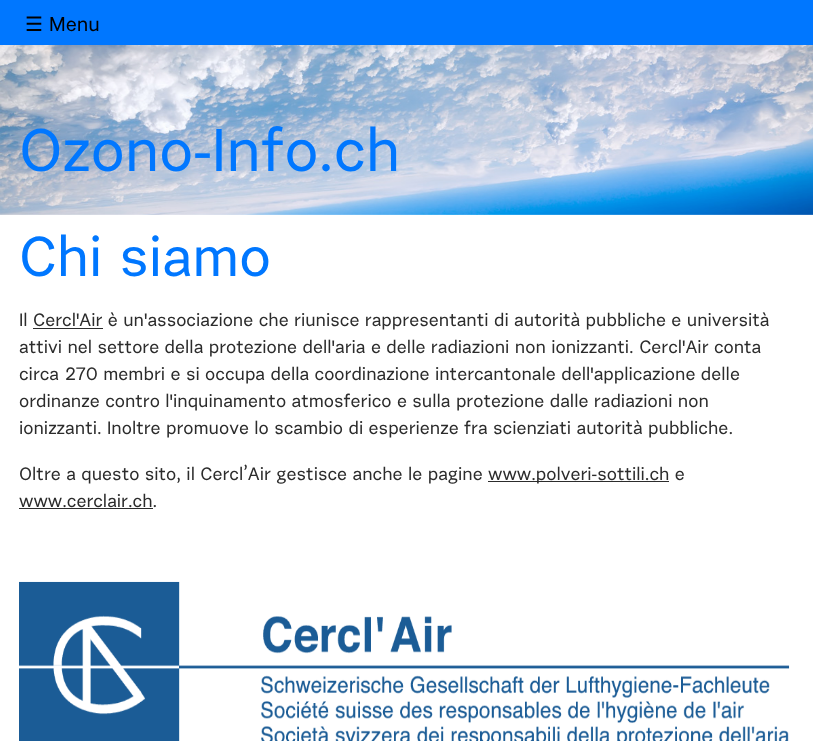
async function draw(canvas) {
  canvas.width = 813
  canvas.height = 741
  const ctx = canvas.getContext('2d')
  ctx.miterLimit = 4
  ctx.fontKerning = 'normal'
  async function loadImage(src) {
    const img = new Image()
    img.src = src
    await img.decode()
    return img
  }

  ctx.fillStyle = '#fff'
  ctx.fillRect(0, 0, 813, 741)
  ctx.fillStyle = '#07f'
  ctx.fillRect(0, 0, 813, 45)
  ctx.font = '20px DejaVu Sans'
  ctx.fillStyle = '#000'
  ctx.fillText('☰', 25, 31)
  ctx.font = '20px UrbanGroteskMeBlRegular'
  ctx.fillText('Menu', 49, 31)
  ctx.drawImage(await loadImage('image0.png'), 0, 45, 813, 170)
  ctx.font = '60px UrbanGroteskMeBlRegular'
  ctx.fillStyle = '#07f'
  ctx.fillText('Ozono-Info.ch', 19, 171)
  ctx.font = '56px UrbanGroteskMeBlRegular'
  ctx.fillText('Chi siamo', 19, 276)
  ctx.font = '18px UrbanGroteskMeBlRegular'
  ctx.fillStyle = '#2c2c2c'
  ctx.fillText('Il Cercl\'Air è un\'associazione che riunisce rappresentanti di autorità pubbliche e università', 19, 326)
  ctx.fillRect(33, 328, 70, 1)
  ctx.fillText('attivi nel settore della protezione dell\'aria e delle radiazioni non ionizzanti. Cercl\'Air conta', 19, 353)
  ctx.fillText('circa 270 membri e si occupa della coordinazione intercantonale dell\'applicazione delle', 19, 380)
  ctx.fillText('ordinanze contro l\'inquinamento atmosferico e sulla protezione dalle radiazioni non', 19, 407)
  ctx.fillText('ionizzanti. Inoltre promuove lo scambio di esperienze fra scienziati autorità pubbliche.', 19, 434)
  ctx.fillText('Oltre a questo sito, il Cercl’Air gestisce anche le pagine', 19, 480)
  ctx.fillRect(488, 481, 181, 1)
  ctx.fillText('www.polveri-sottili.ch e', 488, 480)
  ctx.fillText('www.cerclair.ch.', 19, 507)
  ctx.fillRect(19, 508, 134, 1)
  ctx.drawImage(await loadImage('image1.png'), 19, 581, 771, 160)
}

draw(document.querySelector('canvas'))
